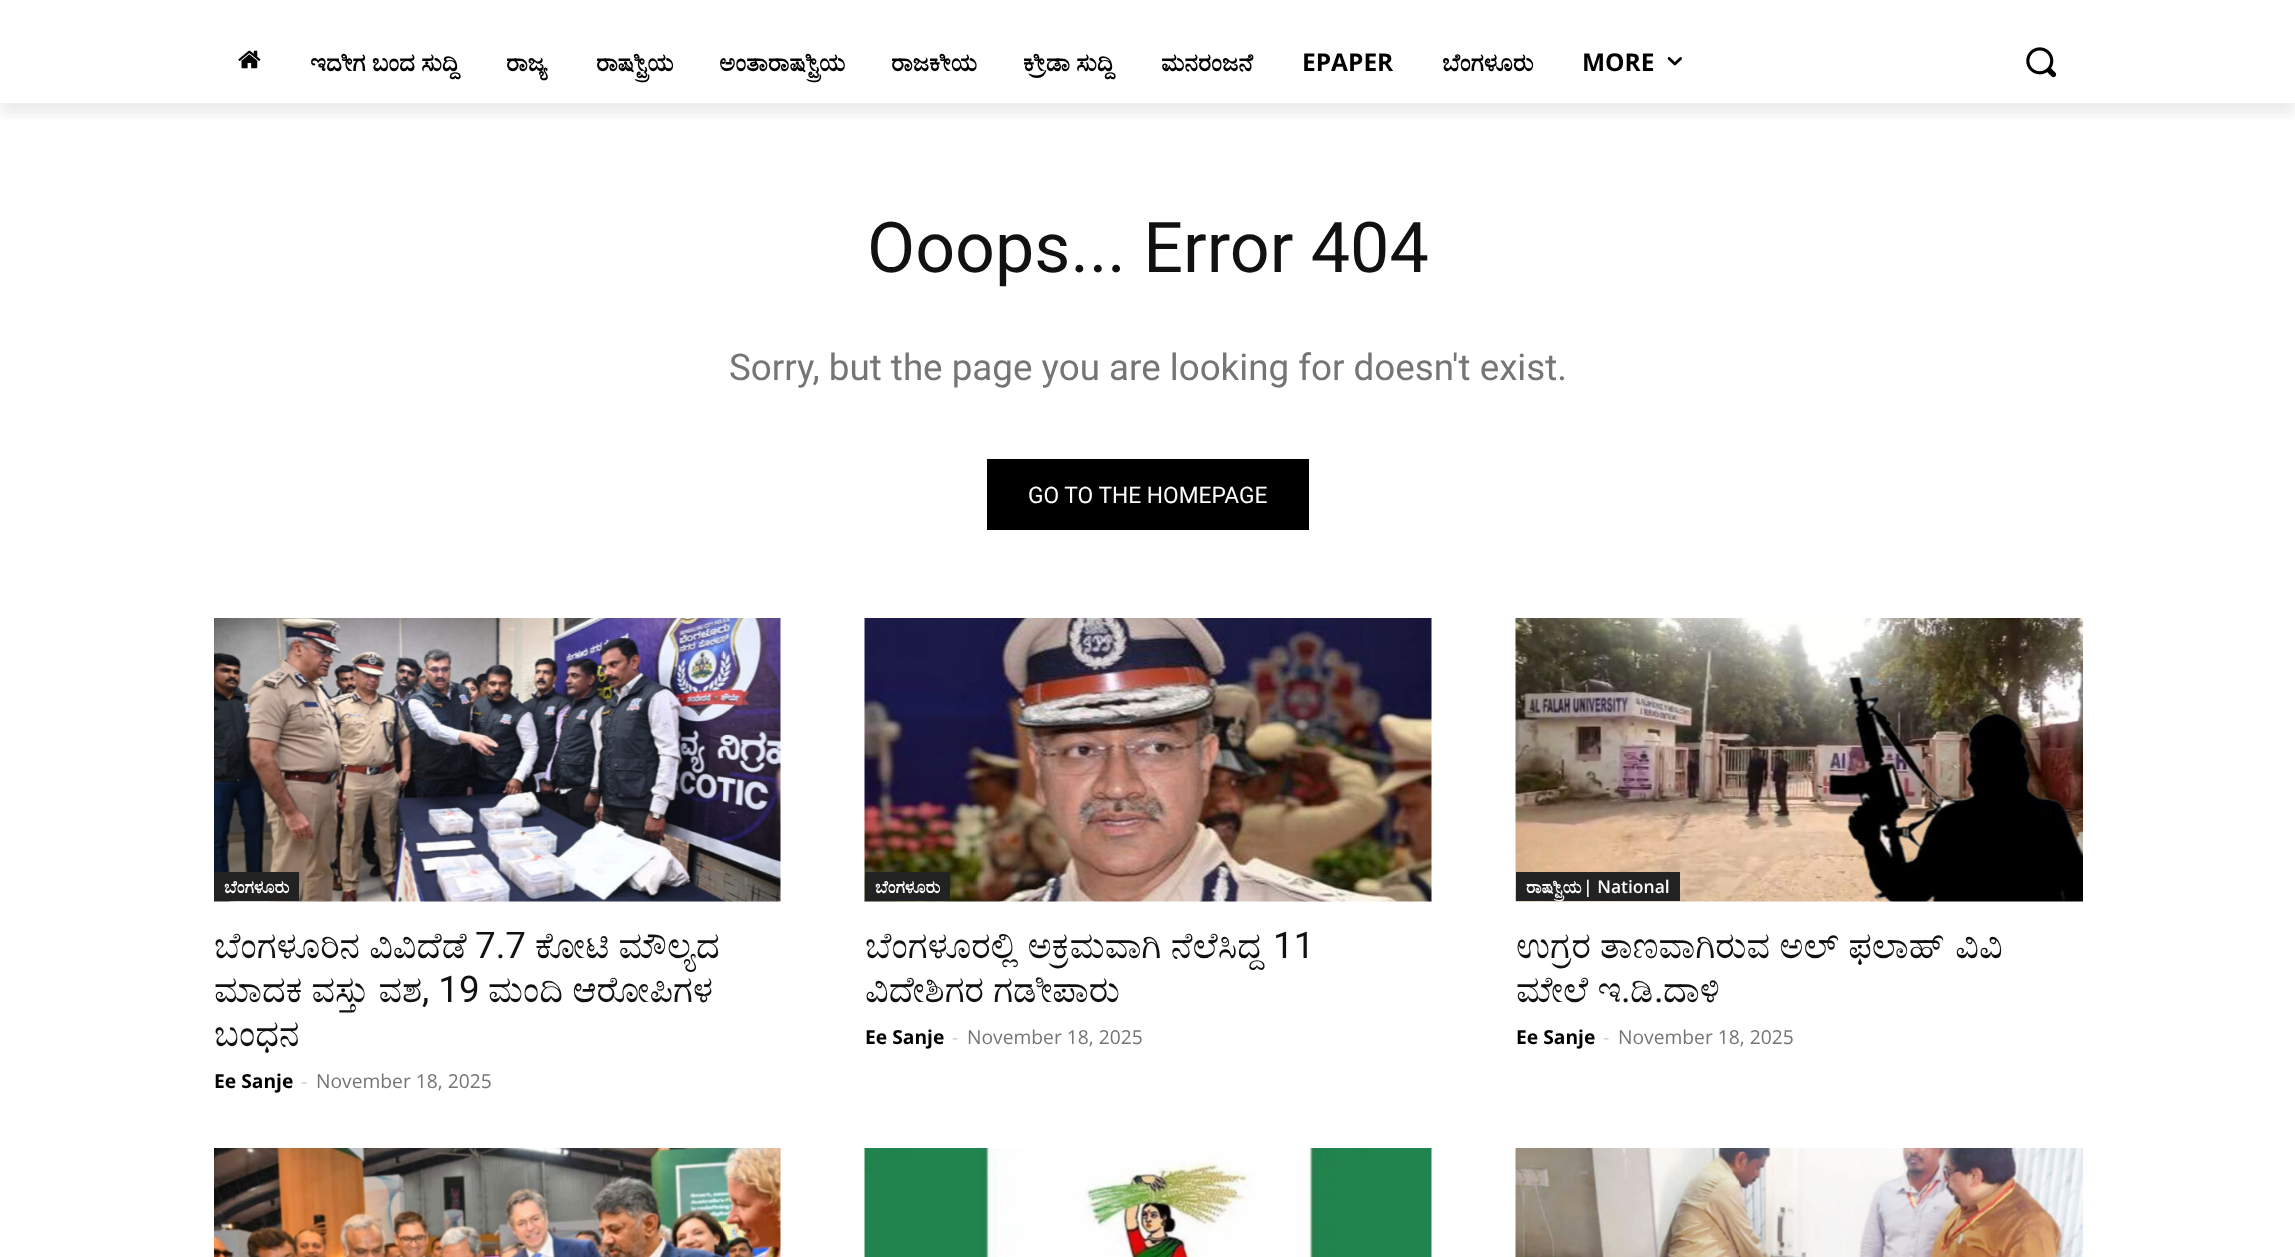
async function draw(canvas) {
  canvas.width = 2295
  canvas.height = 1257
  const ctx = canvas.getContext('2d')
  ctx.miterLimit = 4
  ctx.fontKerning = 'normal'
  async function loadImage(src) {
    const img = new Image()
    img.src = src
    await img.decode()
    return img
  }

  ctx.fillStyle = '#fff'
  ctx.fillRect(0, 0, 2295, 1257)
  ctx.save()
  ctx.beginPath()
  ctx.rect(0, 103, 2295, 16)
  ctx.clip()
  ctx.fillStyle = '#00000014'
  ctx.filter = 'blur(7px)'
  ctx.beginPath()
  ctx.rect(0, -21, 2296, 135)
  ctx.fill()
  ctx.filter = 'none'
  ctx.restore()
  ctx.drawImage(await loadImage('image0.png'), 238, 50, 23, 19)
  ctx.font = 'bold 24.5px FreeSerif'
  ctx.fillStyle = '#000'
  ctx.fillText('ಇದೀಗ ಬಂದ ಸುದ್ದಿ', 310, 71)
  ctx.fillText('ರಾಜ್ಯ', 506, 71)
  ctx.fillText('ರಾಷ್ಟ್ರೀಯ', 596, 71)
  ctx.fillText('ಅಂತಾರಾಷ್ಟ್ರೀಯ', 719, 71)
  ctx.fillText('ರಾಜಕೀಯ', 891, 71)
  ctx.fillText('ಕ್ರೀಡಾ ಸುದ್ದಿ', 1023, 71)
  ctx.fillText('ಮನರಂಜನೆ', 1161, 71)
  ctx.font = 'bold 24.5px Open Sans'
  ctx.fillText('EPAPER', 1302, 71)
  ctx.font = 'bold 24.5px FreeSerif'
  ctx.fillText('ಬೆಂಗಳೂರು', 1442, 71)
  ctx.font = 'bold 24.5px Open Sans'
  ctx.fillText('MORE', 1582, 71)
  ctx.drawImage(await loadImage('image1.png'), 1667, 57, 15, 9)
  ctx.drawImage(await loadImage('image2.png'), 2026, 47, 31, 31)
  ctx.font = '70px Roboto'
  ctx.fillStyle = '#111'
  ctx.fillText('Ooops... Error 404', 867, 272)
  ctx.font = '36.75px Roboto'
  ctx.fillStyle = '#757575'
  ctx.fillText('Sorry, but the page you are looking for doesn\'t exist.', 729, 380)
  ctx.fillStyle = '#000'
  ctx.fillRect(987, 459, 322, 71)
  ctx.font = '22.75px Roboto'
  ctx.fillStyle = '#fff'
  ctx.fillText('GO TO THE HOMEPAGE', 1028, 503)
  ctx.drawImage(await loadImage('image3.png'), 214, 618, 567, 284)
  ctx.fillStyle = '#222'
  ctx.fillRect(214, 872, 85, 29)
  ctx.font = 'bold 17.5px FreeSerif'
  ctx.fillStyle = '#fff'
  ctx.fillText('ಬೆಂಗಳೂರು', 224, 893)
  ctx.font = '36.75px FreeSerif'
  ctx.fillStyle = '#111'
  ctx.fillText('ಬೆಂಗಳೂರಿನ ವಿವಿದೆಡೆ', 214, 958)
  ctx.font = '36.75px Roboto'
  ctx.fillText('7.7', 475, 958)
  ctx.font = '36.75px FreeSerif'
  ctx.fillText('ಕೋಟಿ ಮೌಲ್ಯದ', 535, 958)
  ctx.fillText('ಮಾದಕ ವಸ್ತು ವಶ', 214, 1002)
  ctx.font = '36.75px Roboto'
  ctx.fillText(', 19', 422, 1002)
  ctx.font = '36.75px FreeSerif'
  ctx.fillText('ಮಂದಿ ಆರೋಪಿಗಳ', 488, 1002)
  ctx.fillText('ಬಂಧನ', 214, 1046)
  ctx.font = 'bold 19.25px Open Sans'
  ctx.fillStyle = '#000'
  ctx.fillText('Ee Sanje', 214, 1088)
  ctx.font = '19.25px Open Sans'
  ctx.fillStyle = '#ccc'
  ctx.fillText('-', 301, 1088)
  ctx.fillStyle = '#757575'
  ctx.fillText('November 18, 2025', 316, 1088)
  ctx.drawImage(await loadImage('image4.png'), 864, 618, 568, 284)
  ctx.fillStyle = '#222'
  ctx.fillRect(865, 872, 85, 29)
  ctx.font = 'bold 17.5px FreeSerif'
  ctx.fillStyle = '#fff'
  ctx.fillText('ಬೆಂಗಳೂರು', 875, 893)
  ctx.font = '36.75px FreeSerif'
  ctx.fillStyle = '#111'
  ctx.fillText('ಬೆಂಗಳೂರಲ್ಲಿ ಅಕ್ರಮವಾಗಿ ನೆಲೆಸಿದ್ದ', 865, 958)
  ctx.font = '36.75px Roboto'
  ctx.fillText('11', 1273, 958)
  ctx.font = '36.75px FreeSerif'
  ctx.fillText('ವಿದೇಶಿಗರ ಗಡೀಪಾರು', 865, 1002)
  ctx.font = 'bold 19.25px Open Sans'
  ctx.fillStyle = '#000'
  ctx.fillText('Ee Sanje', 865, 1044)
  ctx.font = '19.25px Open Sans'
  ctx.fillStyle = '#ccc'
  ctx.fillText('-', 952, 1044)
  ctx.fillStyle = '#757575'
  ctx.fillText('November 18, 2025', 967, 1044)
  ctx.drawImage(await loadImage('image5.png'), 1515, 618, 568, 284)
  ctx.fillStyle = '#222'
  ctx.fillRect(1516, 872, 164, 29)
  ctx.font = 'bold 17.5px FreeSerif'
  ctx.fillStyle = '#fff'
  ctx.fillText('ರಾಷ್ಟ್ರೀಯ', 1526, 893)
  ctx.font = '600 17.5px Open Sans'
  ctx.fillText('| National', 1583, 893)
  ctx.font = '36.75px FreeSerif'
  ctx.fillStyle = '#111'
  ctx.fillText('ಉಗ್ರರ ತಾಣವಾಗಿರುವ ಅಲ್‌ ಫಲಾಹ್‌ ವಿವಿ', 1516, 958)
  ctx.fillText('ಮೇಲೆ ಇ', 1516, 1002)
  ctx.font = '36.75px Roboto'
  ctx.fillText('.', 1621, 1002)
  ctx.font = '36.75px FreeSerif'
  ctx.fillText('ಡಿ', 1630, 1002)
  ctx.font = '36.75px Roboto'
  ctx.fillText('.', 1654, 1002)
  ctx.font = '36.75px FreeSerif'
  ctx.fillText('ದಾಳಿ', 1663, 1002)
  ctx.font = 'bold 19.25px Open Sans'
  ctx.fillStyle = '#000'
  ctx.fillText('Ee Sanje', 1516, 1044)
  ctx.font = '19.25px Open Sans'
  ctx.fillStyle = '#ccc'
  ctx.fillText('-', 1603, 1044)
  ctx.fillStyle = '#757575'
  ctx.fillText('November 18, 2025', 1618, 1044)
  ctx.drawImage(await loadImage('image6.png'), 214, 1148, 567, 109)
  ctx.drawImage(await loadImage('image7.png'), 864, 1148, 568, 109)
  ctx.drawImage(await loadImage('image8.png'), 1515, 1148, 568, 109)
}

draw(document.querySelector('canvas'))
